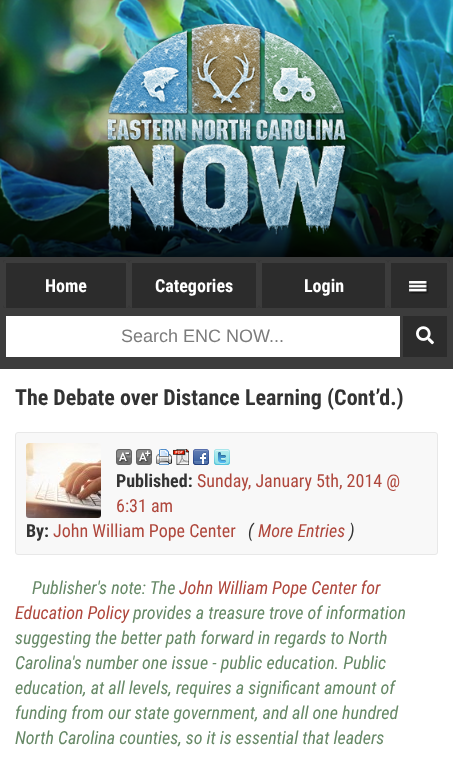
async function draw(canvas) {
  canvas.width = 453
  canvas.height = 757
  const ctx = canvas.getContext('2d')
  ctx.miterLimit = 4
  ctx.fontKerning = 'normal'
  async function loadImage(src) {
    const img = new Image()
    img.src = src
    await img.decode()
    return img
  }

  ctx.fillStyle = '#3c3c3c'
  ctx.fillRect(0, 0, 453, 757)
  ctx.drawImage(await loadImage('image0.png'), 0, 0, 453, 257)
  ctx.drawImage(await loadImage('image1.png'), 106, 22, 241, 214)
  ctx.fillStyle = '#2c2c2c'
  ctx.beginPath()
  ctx.roundRect(3, 260, 126, 48, 3)
  ctx.fill()
  ctx.fillStyle = '#3c3c3c'
  ctx.beginPath()
  ctx.moveTo(6, 260)
  ctx.lineTo(126, 260)
  ctx.bezierCurveTo(128, 260, 129, 261, 129, 263)
  ctx.lineTo(129, 305)
  ctx.bezierCurveTo(129, 307, 128, 308, 126, 308)
  ctx.lineTo(6, 308)
  ctx.bezierCurveTo(4, 308, 3, 307, 3, 305)
  ctx.lineTo(3, 263)
  ctx.bezierCurveTo(3, 261, 4, 260, 6, 260)
  ctx.closePath()
  ctx.moveTo(6, 263)
  ctx.lineTo(126, 263)
  ctx.lineTo(126, 308)
  ctx.lineTo(6, 308)
  ctx.lineTo(6, 305)
  ctx.closePath()
  ctx.fill('evenodd')
  ctx.font = 'bold 18px Roboto Condensed'
  ctx.fillStyle = '#fff'
  ctx.fillText('Home', 45, 292)
  ctx.fillStyle = '#2c2c2c'
  ctx.beginPath()
  ctx.roundRect(129, 260, 130, 48, 3)
  ctx.fill()
  ctx.fillStyle = '#3c3c3c'
  ctx.beginPath()
  ctx.moveTo(132, 260)
  ctx.lineTo(256, 260)
  ctx.bezierCurveTo(258, 260, 259, 261, 259, 263)
  ctx.lineTo(259, 305)
  ctx.bezierCurveTo(259, 307, 258, 308, 256, 308)
  ctx.lineTo(132, 308)
  ctx.bezierCurveTo(130, 308, 129, 307, 129, 305)
  ctx.lineTo(129, 263)
  ctx.bezierCurveTo(129, 261, 130, 260, 132, 260)
  ctx.closePath()
  ctx.moveTo(132, 263)
  ctx.lineTo(256, 263)
  ctx.lineTo(256, 308)
  ctx.lineTo(132, 308)
  ctx.lineTo(132, 305)
  ctx.closePath()
  ctx.fill('evenodd')
  ctx.fillStyle = '#fff'
  ctx.fillText('Categories', 155, 292)
  ctx.fillStyle = '#2c2c2c'
  ctx.beginPath()
  ctx.roundRect(259, 260, 129, 48, 3)
  ctx.fill()
  ctx.fillStyle = '#3c3c3c'
  ctx.beginPath()
  ctx.moveTo(262, 260)
  ctx.lineTo(385, 260)
  ctx.bezierCurveTo(387, 260, 388, 261, 388, 263)
  ctx.lineTo(388, 305)
  ctx.bezierCurveTo(388, 307, 387, 308, 385, 308)
  ctx.lineTo(262, 308)
  ctx.bezierCurveTo(260, 308, 259, 307, 259, 305)
  ctx.lineTo(259, 263)
  ctx.bezierCurveTo(259, 261, 260, 260, 262, 260)
  ctx.closePath()
  ctx.moveTo(262, 263)
  ctx.lineTo(385, 263)
  ctx.lineTo(385, 308)
  ctx.lineTo(262, 308)
  ctx.lineTo(262, 305)
  ctx.closePath()
  ctx.fill('evenodd')
  ctx.fillStyle = '#fff'
  ctx.fillText('Login', 304, 292)
  ctx.fillStyle = '#2c2c2c'
  ctx.beginPath()
  ctx.roundRect(388, 260, 62, 48, 3)
  ctx.fill()
  ctx.fillStyle = '#3c3c3c'
  ctx.beginPath()
  ctx.moveTo(391, 260)
  ctx.lineTo(447, 260)
  ctx.bezierCurveTo(449, 260, 450, 261, 450, 263)
  ctx.lineTo(450, 305)
  ctx.bezierCurveTo(450, 307, 449, 308, 447, 308)
  ctx.lineTo(391, 308)
  ctx.bezierCurveTo(389, 308, 388, 307, 388, 305)
  ctx.lineTo(388, 263)
  ctx.bezierCurveTo(388, 261, 389, 260, 391, 260)
  ctx.closePath()
  ctx.moveTo(391, 263)
  ctx.lineTo(447, 263)
  ctx.lineTo(447, 308)
  ctx.lineTo(391, 308)
  ctx.lineTo(391, 305)
  ctx.closePath()
  ctx.fill('evenodd')
  ctx.drawImage(await loadImage('image2.png'), 409, 281, 20, 13)
  ctx.fillStyle = '#fff'
  ctx.fillRect(6, 316, 394, 41)
  ctx.font = '18px Liberation Sans'
  ctx.fillStyle = '#7c7c7c'
  ctx.fillText('Search ENC NOW...', 121, 342)
  ctx.fillStyle = '#2c2c2c'
  ctx.fillRect(403, 316, 44, 41)
  ctx.drawImage(await loadImage('image3.png'), 416, 326, 18, 19)
  ctx.fillStyle = '#fff'
  ctx.fillRect(0, 369, 453, 388)
  ctx.font = 'bold 22px Roboto Condensed'
  ctx.fillStyle = '#333'
  ctx.fillText('The Debate over Distance Learning (Cont’d.)', 15, 405)
  ctx.fillStyle = '#f8f8f8'
  ctx.beginPath()
  ctx.roundRect(15.5, 432.5, 422, 122, 2.5)
  ctx.fill()
  ctx.strokeStyle = '#e8e8e8'
  ctx.stroke()
  ctx.drawImage(await loadImage('image4.png'), 26, 443, 75, 75)
  ctx.drawImage(await loadImage('image5.png'), 116, 449, 16, 16)
  ctx.drawImage(await loadImage('image6.png'), 136, 449, 16, 16)
  ctx.drawImage(await loadImage('image7.png'), 156, 449, 33, 16)
  ctx.drawImage(await loadImage('image8.png'), 193, 449, 16, 16)
  ctx.drawImage(await loadImage('image9.png'), 214, 449, 16, 16)
  ctx.font = 'bold 18px Roboto Condensed'
  ctx.fillStyle = '#333'
  ctx.fillText('Published:', 116, 487)
  ctx.font = '18px Roboto Condensed'
  ctx.fillStyle = '#af473c'
  ctx.fillText('Sunday, January 5th, 2014 @', 197, 487)
  ctx.fillText('6:31 am', 116, 512)
  ctx.font = 'bold 18px Roboto Condensed'
  ctx.fillStyle = '#333'
  ctx.fillText('By:', 26, 537)
  ctx.font = '18px Roboto Condensed'
  ctx.fillStyle = '#af473c'
  ctx.fillText('John William Pope Center', 53, 537)
  ctx.font = 'italic 18px Roboto Condensed'
  ctx.fillStyle = '#333'
  ctx.fillText('(', 248, 537)
  ctx.fillStyle = '#af473c'
  ctx.fillText('More Entries', 258, 537)
  ctx.fillStyle = '#333'
  ctx.fillText(')', 349, 537)
  ctx.fillStyle = '#686'
  ctx.fillText('Publisher\'s note: The', 32, 594)
  ctx.fillStyle = '#af473c'
  ctx.fillText('John William Pope Center for', 179, 594)
  ctx.fillText('Education Policy', 15, 619)
  ctx.fillStyle = '#686'
  ctx.fillText('provides a treasure trove of information', 133, 619)
  ctx.fillText('suggesting the better path forward in regards to North', 15, 644)
  ctx.fillText('Carolina\'s number one issue - public education. Public', 15, 669)
  ctx.fillText('education, at all levels, requires a significant amount of', 15, 694)
  ctx.fillText('funding from our state government, and all one hundred', 15, 719)
  ctx.fillText('North Carolina counties, so it is essential that leaders', 15, 744)
}

draw(document.querySelector('canvas'))
